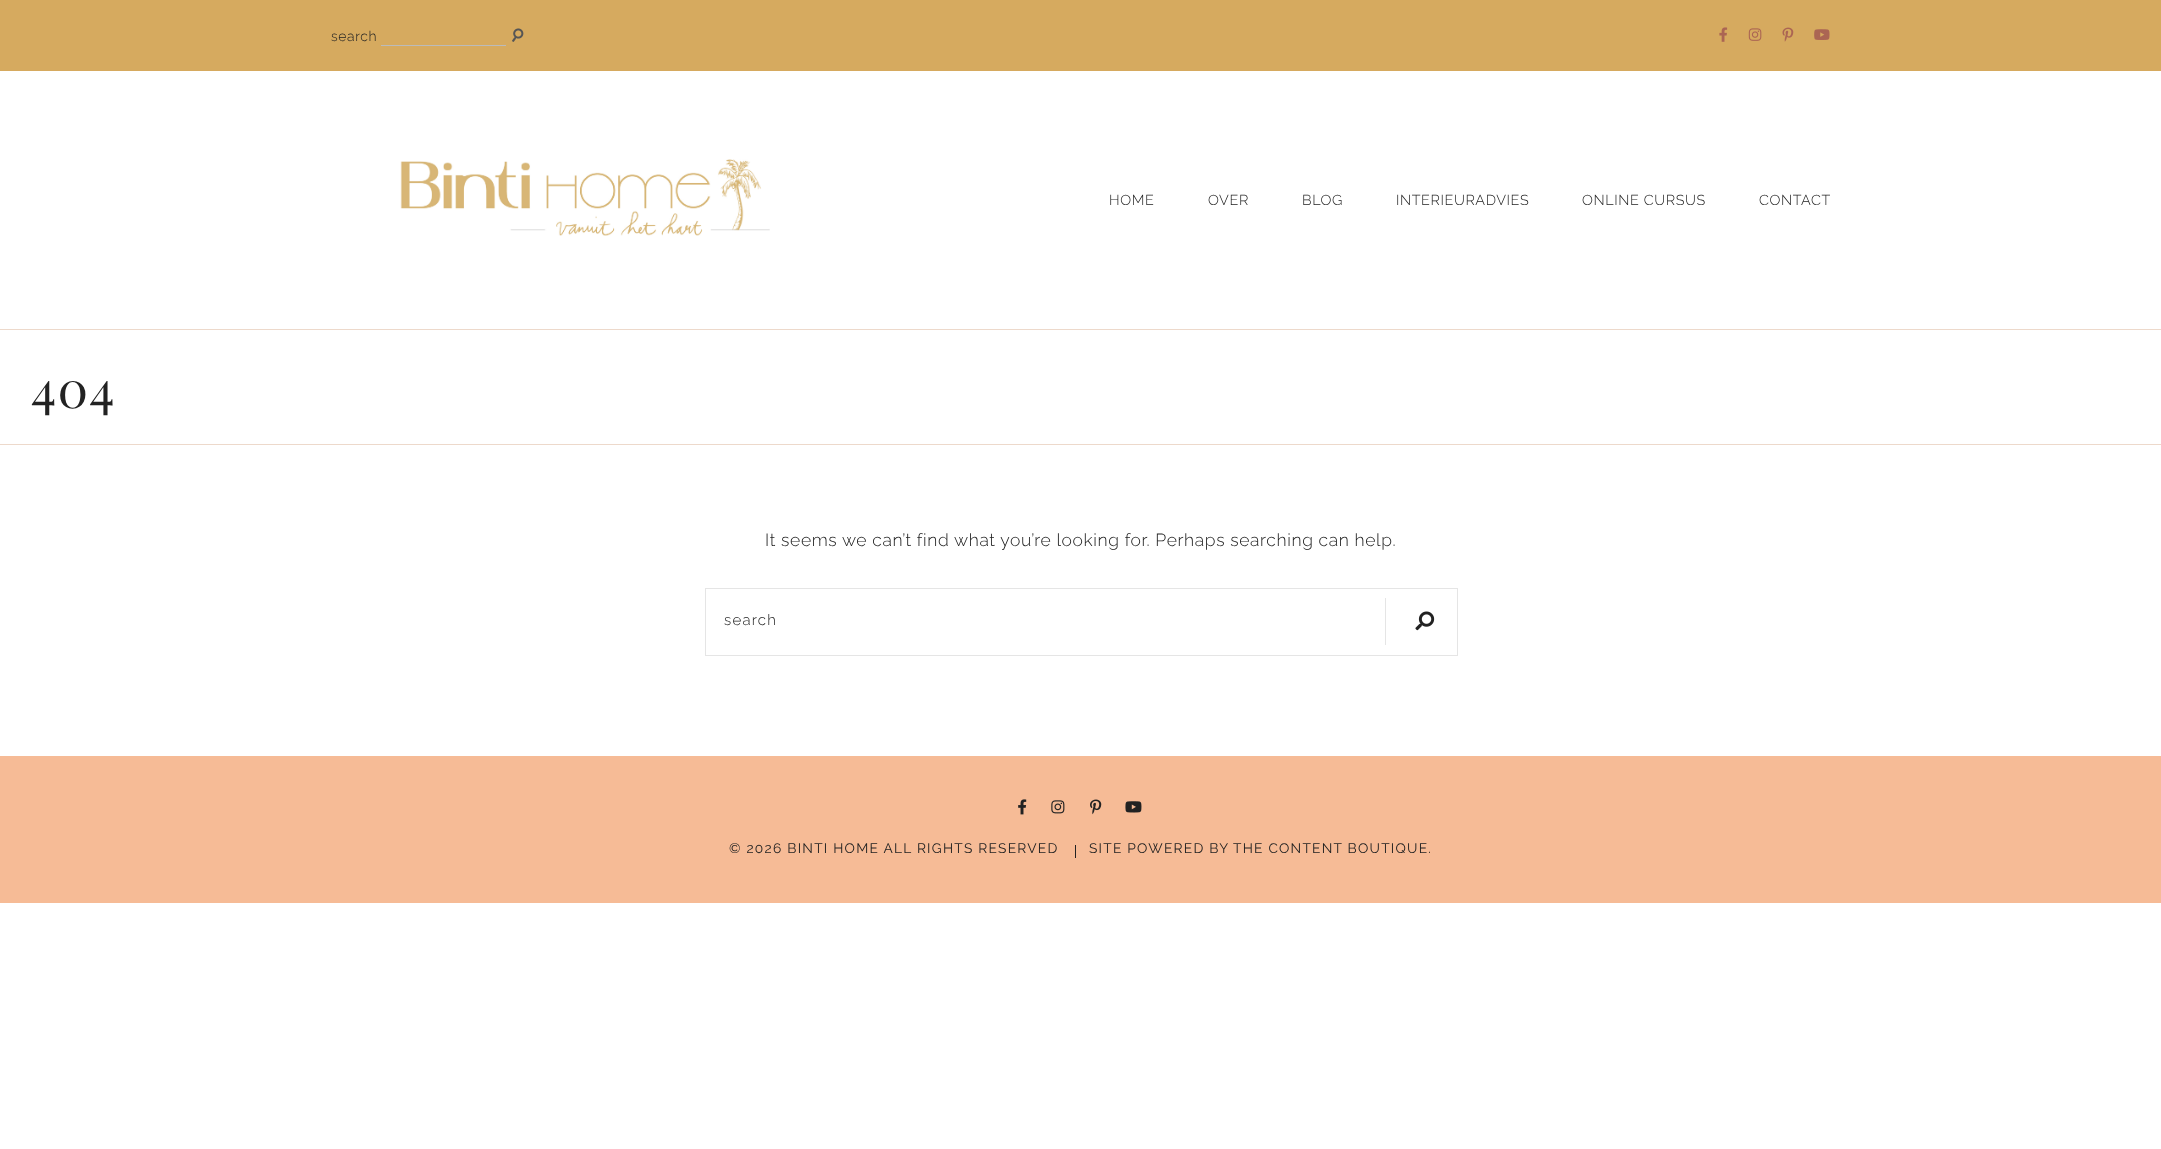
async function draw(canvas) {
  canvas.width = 2161
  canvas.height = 1149
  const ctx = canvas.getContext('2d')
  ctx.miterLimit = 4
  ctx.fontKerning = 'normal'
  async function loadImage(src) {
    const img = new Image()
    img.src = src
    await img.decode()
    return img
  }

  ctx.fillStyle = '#fff'
  ctx.fillRect(0, 0, 2161, 1149)
  ctx.fillStyle = '#d6aa5f'
  ctx.fillRect(0, 0, 2161, 71)
  ctx.letterSpacing = '0.62px'
  ctx.font = '300 14px Raleway'
  ctx.fillStyle = '#222'
  ctx.fillText('search', 331, 41)
  ctx.drawImage(await loadImage('image0.png'), 512, 28, 12, 14)
  ctx.fillStyle = '#bbb'
  ctx.fillRect(381, 45, 125, 1)
  ctx.drawImage(await loadImage('image1.png'), 1719, 27, 9, 15)
  ctx.drawImage(await loadImage('image2.png'), 1748, 28, 14, 13)
  ctx.drawImage(await loadImage('image3.png'), 1782, 27, 12, 15)
  ctx.drawImage(await loadImage('image4.png'), 1814, 29, 16, 11)
  ctx.drawImage(await loadImage('image5.png'), 400, 159, 370, 77)
  ctx.font = '300 14.4px Raleway'
  ctx.fillStyle = '#222'
  ctx.fillText('HOME', 1109, 205)
  ctx.fillText('OVER', 1208, 205)
  ctx.fillText('BLOG', 1302, 205)
  ctx.fillText('INTERIEURADVIES', 1396, 205)
  ctx.fillText('ONLINE CURSUS', 1582, 205)
  ctx.fillText('CONTACT', 1759, 205)
  ctx.fillStyle = '#edd9cb'
  ctx.fillRect(0, 329, 2161, 1)
  ctx.fillRect(0, 444, 2161, 1)
  ctx.letterSpacing = '1.25px'
  ctx.font = '51px Playfair Display'
  ctx.fillStyle = '#222'
  ctx.fillText('404', 31, 408)
  ctx.letterSpacing = '0.62px'
  ctx.font = '300 17.5px Raleway'
  ctx.fillText('It seems we can’t find what you’re looking for. Perhaps searching can help.', 765, 546)
  ctx.strokeStyle = '#e5e5e5'
  ctx.strokeRect(705.5, 588.5, 752, 67)
  ctx.letterSpacing = '1.25px'
  ctx.font = '300 15px Raleway'
  ctx.fillText('search', 724, 625)
  ctx.drawImage(await loadImage('image6.png'), 1415, 611, 20, 20)
  ctx.fillStyle = '#e5e5e5'
  ctx.fillRect(1385, 598, 1, 47)
  ctx.fillStyle = '#f6bb96'
  ctx.fillRect(0, 756, 2161, 147)
  ctx.drawImage(await loadImage('image7.png'), 1018, 799, 9, 16)
  ctx.drawImage(await loadImage('image8.png'), 1051, 800, 14, 14)
  ctx.drawImage(await loadImage('image9.png'), 1090, 799, 12, 16)
  ctx.drawImage(await loadImage('image10.png'), 1125, 801, 17, 12)
  ctx.font = '13.75px Raleway'
  ctx.fillStyle = '#222'
  ctx.fillText('© 2026 BINTI HOME ALL RIGHTS RESERVED', 729, 853)
  ctx.fillRect(1075, 845, 1, 13)
  ctx.fillText('SITE POWERED BY', 1089, 853)
  ctx.fillText('THE CONTENT BOUTIQUE.', 1233, 853)
}

draw(document.querySelector('canvas'))
